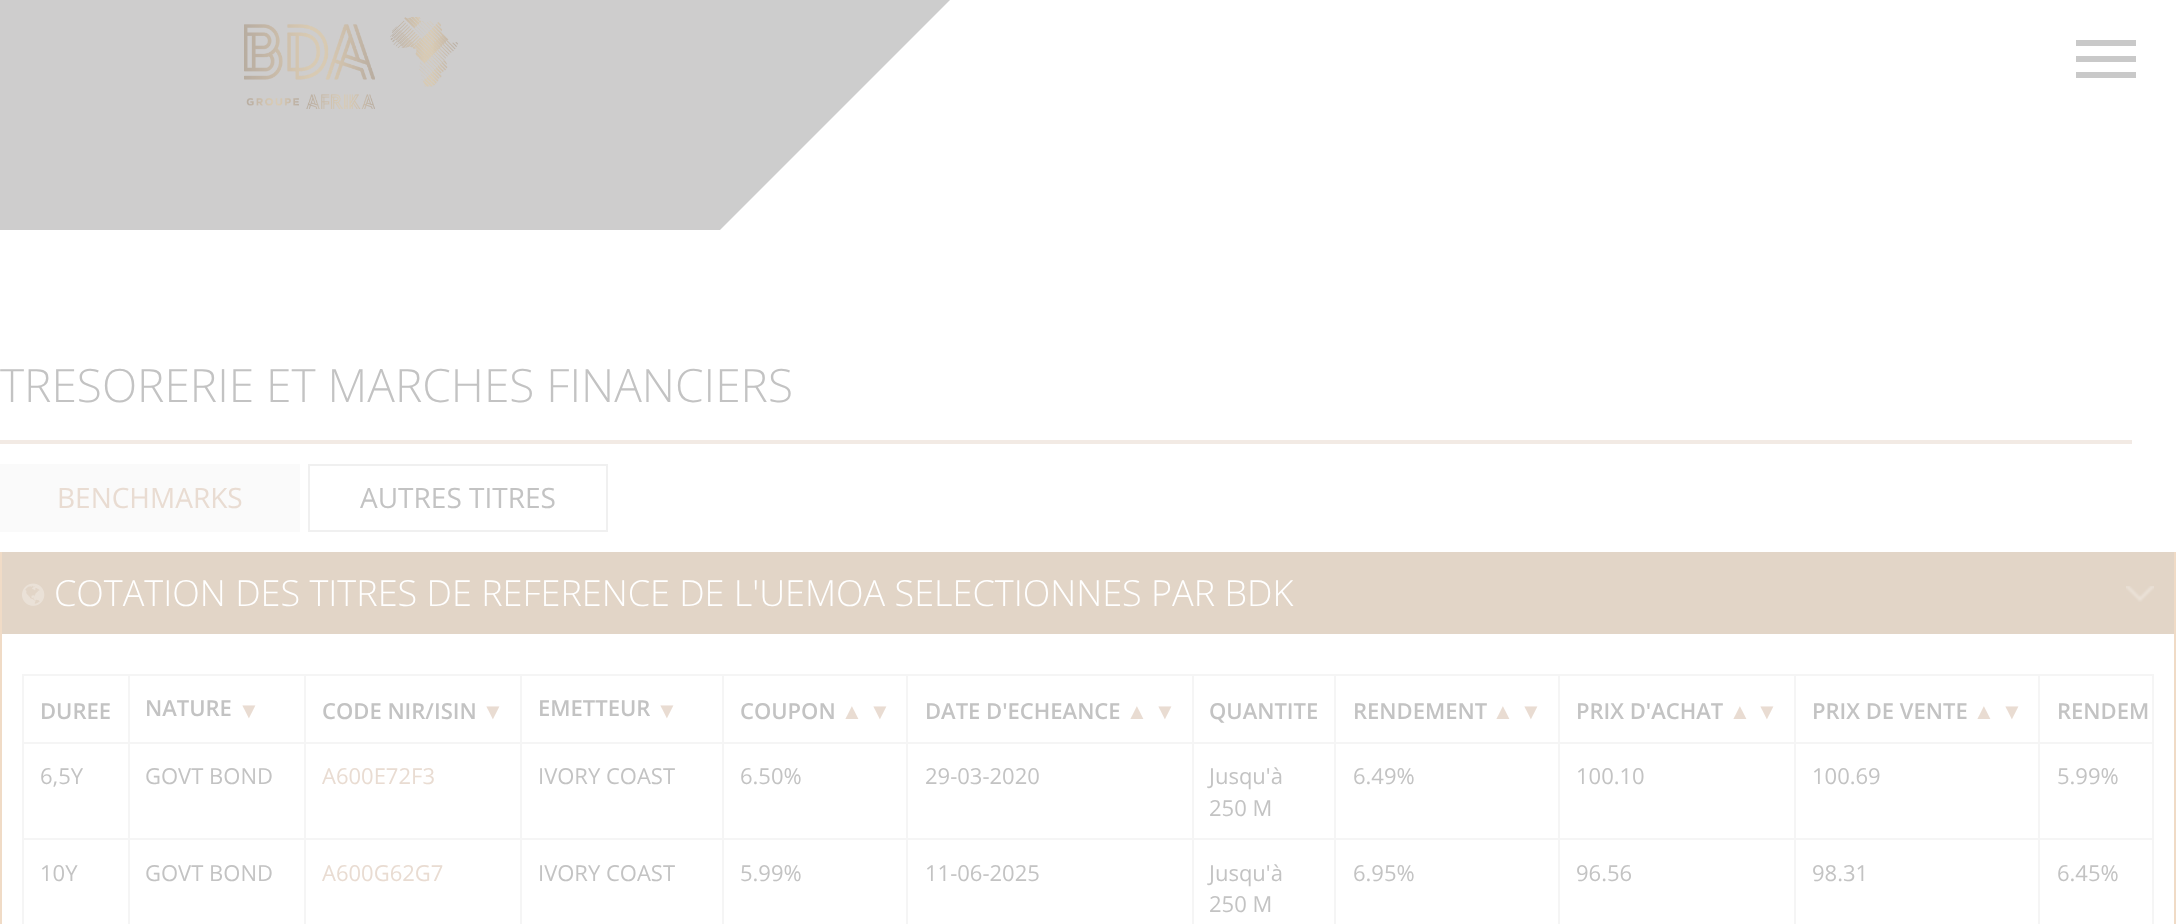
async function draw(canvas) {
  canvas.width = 2176
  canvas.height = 924
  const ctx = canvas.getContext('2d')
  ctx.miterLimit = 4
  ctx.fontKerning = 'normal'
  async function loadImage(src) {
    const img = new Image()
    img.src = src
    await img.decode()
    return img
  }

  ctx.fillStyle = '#fff'
  ctx.fillRect(0, 0, 2176, 924)
  ctx.fillStyle = '#cecdcd'
  ctx.fillRect(0, 0, 720, 230)
  ctx.fillStyle = '#cdcdcd'
  ctx.beginPath()
  ctx.moveTo(720, 0)
  ctx.lineTo(950, 0)
  ctx.lineTo(720, 230)
  ctx.closePath()
  ctx.fill()
  ctx.drawImage(await loadImage('image0.png'), 244, 17, 214, 92)
  ctx.fillStyle = '#c9c9c9'
  ctx.fillRect(2076, 40, 60, 6)
  ctx.fillRect(2076, 72, 60, 6)
  ctx.fillRect(2076, 56, 60, 6)
  ctx.fillStyle = '#f2eae4'
  ctx.fillRect(0, 440, 2132, 4)
  ctx.font = '300 46px Open Sans'
  ctx.fillStyle = '#c3c3c3'
  ctx.fillText('TRESORERIE ET MARCHES FINANCIERS', 0, 402)
  ctx.fillStyle = '#fafafa'
  ctx.fillRect(0, 464, 300, 68)
  ctx.font = '28px Open Sans'
  ctx.fillStyle = '#e9dcd2'
  ctx.fillText('BENCHMARKS', 57, 508)
  ctx.strokeStyle = '#f0f0f0'
  ctx.lineWidth = 2
  ctx.strokeRect(309, 465, 298, 66)
  ctx.fillStyle = '#c3c3c3'
  ctx.fillText('AUTRES TITRES', 360, 508)
  ctx.fillStyle = '#f0dbc6'
  ctx.fillRect(2174, 552, 2, 372)
  ctx.fillRect(0, 552, 2, 372)
  ctx.fillStyle = '#e2d5c7'
  ctx.fillRect(2, 552, 2172, 82)
  ctx.drawImage(await loadImage('image1.png'), 22, 583, 23, 23)
  ctx.font = '300 36px Open Sans'
  ctx.fillStyle = '#fff'
  ctx.fillText('COTATION DES TITRES DE REFERENCE DE L\'UEMOA SELECTIONNES PAR BDK', 54, 606)
  ctx.drawImage(await loadImage('image2.png'), 2126, 586, 28, 16)
  ctx.strokeStyle = '#f5f5f5'
  ctx.strokeRect(23, 675, 2130, 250)
  ctx.font = '600 22px Open Sans'
  ctx.fillStyle = '#c3c3c3'
  ctx.fillText('DUREE', 40, 719)
  ctx.fillText('NATURE', 145, 716)
  ctx.font = 'bold 22px Liberation Sans'
  ctx.fillStyle = '#e9dcd2'
  ctx.fillText('▼', 238, 718)
  ctx.font = '600 22px Open Sans'
  ctx.fillStyle = '#c3c3c3'
  ctx.fillText('CODE NIR/ISIN', 322, 719)
  ctx.font = 'bold 22px Liberation Sans'
  ctx.fillStyle = '#e9dcd2'
  ctx.fillText('▼', 482, 719)
  ctx.font = '600 22px Open Sans'
  ctx.fillStyle = '#c3c3c3'
  ctx.fillText('EMETTEUR', 538, 716)
  ctx.font = 'bold 22px Liberation Sans'
  ctx.fillStyle = '#e9dcd2'
  ctx.fillText('▼', 656, 718)
  ctx.font = '600 22px Open Sans'
  ctx.fillStyle = '#c3c3c3'
  ctx.fillText('COUPON', 740, 719)
  ctx.font = 'bold 22px Liberation Sans'
  ctx.fillStyle = '#e9dcd2'
  ctx.fillText('▲', 841, 719)
  ctx.fillText('▼', 869, 719)
  ctx.font = '600 22px Open Sans'
  ctx.fillStyle = '#c3c3c3'
  ctx.fillText('DATE D\'ECHEANCE', 925, 719)
  ctx.font = 'bold 22px Liberation Sans'
  ctx.fillStyle = '#e9dcd2'
  ctx.fillText('▲', 1126, 719)
  ctx.fillText('▼', 1154, 719)
  ctx.font = '600 22px Open Sans'
  ctx.fillStyle = '#c3c3c3'
  ctx.fillText('QUANTITE', 1209, 719)
  ctx.fillText('RENDEMENT', 1353, 719)
  ctx.font = 'bold 22px Liberation Sans'
  ctx.fillStyle = '#e9dcd2'
  ctx.fillText('▲', 1492, 719)
  ctx.fillText('▼', 1520, 719)
  ctx.font = '600 22px Open Sans'
  ctx.fillStyle = '#c3c3c3'
  ctx.fillText('PRIX D\'ACHAT', 1576, 719)
  ctx.font = 'bold 22px Liberation Sans'
  ctx.fillStyle = '#e9dcd2'
  ctx.fillText('▲', 1729, 719)
  ctx.fillText('▼', 1756, 719)
  ctx.font = '600 22px Open Sans'
  ctx.fillStyle = '#c3c3c3'
  ctx.fillText('PRIX DE VENTE', 1812, 719)
  ctx.font = 'bold 22px Liberation Sans'
  ctx.fillStyle = '#e9dcd2'
  ctx.fillText('▲', 1973, 719)
  ctx.fillText('▼', 2001, 719)
  ctx.font = '600 22px Open Sans'
  ctx.fillStyle = '#c3c3c3'
  ctx.fillText('RENDEM', 2057, 719)
  ctx.fillStyle = '#f5f5f5'
  ctx.fillRect(24, 742, 2128, 2)
  ctx.fillRect(24, 838, 2128, 2)
  ctx.fillRect(128, 838, 2, 86)
  ctx.fillRect(128, 676, 2, 164)
  ctx.font = '22px Open Sans'
  ctx.fillStyle = '#c3c3c3'
  ctx.fillText('6,5Y', 40, 784)
  ctx.fillStyle = '#f5f5f5'
  ctx.fillRect(304, 838, 2, 86)
  ctx.fillRect(304, 676, 2, 164)
  ctx.fillStyle = '#c3c3c3'
  ctx.fillText('GOVT BOND', 145, 784)
  ctx.fillStyle = '#f5f5f5'
  ctx.fillRect(520, 838, 2, 86)
  ctx.fillRect(520, 676, 2, 164)
  ctx.fillStyle = '#e9dcd2'
  ctx.fillText('A600E72F3', 322, 784)
  ctx.fillStyle = '#f5f5f5'
  ctx.fillRect(722, 838, 2, 86)
  ctx.fillRect(722, 676, 2, 164)
  ctx.fillStyle = '#c3c3c3'
  ctx.fillText('IVORY COAST', 538, 784)
  ctx.fillStyle = '#f5f5f5'
  ctx.fillRect(906, 838, 2, 86)
  ctx.fillRect(906, 676, 2, 164)
  ctx.fillStyle = '#c3c3c3'
  ctx.fillText('6.50%', 740, 784)
  ctx.fillStyle = '#f5f5f5'
  ctx.fillRect(1192, 838, 2, 86)
  ctx.fillRect(1192, 676, 2, 164)
  ctx.fillStyle = '#c3c3c3'
  ctx.fillText('29-03-2020', 925, 784)
  ctx.fillStyle = '#f5f5f5'
  ctx.fillRect(1334, 838, 2, 86)
  ctx.fillRect(1334, 676, 2, 164)
  ctx.fillStyle = '#c3c3c3'
  ctx.fillText('Jusqu\'à', 1209, 784)
  ctx.fillText('250 M', 1209, 816)
  ctx.fillStyle = '#f5f5f5'
  ctx.fillRect(1558, 838, 2, 86)
  ctx.fillRect(1558, 676, 2, 164)
  ctx.fillStyle = '#c3c3c3'
  ctx.fillText('6.49%', 1353, 784)
  ctx.fillStyle = '#f5f5f5'
  ctx.fillRect(1794, 838, 2, 86)
  ctx.fillRect(1794, 676, 2, 164)
  ctx.fillStyle = '#c3c3c3'
  ctx.fillText('100.10', 1576, 784)
  ctx.fillStyle = '#f5f5f5'
  ctx.fillRect(2038, 838, 2, 86)
  ctx.fillRect(2038, 676, 2, 164)
  ctx.fillStyle = '#c3c3c3'
  ctx.fillText('100.69', 1812, 784)
  ctx.fillText('5.99%', 2057, 784)
  ctx.fillText('10Y', 40, 881)
  ctx.fillText('GOVT BOND', 145, 881)
  ctx.fillStyle = '#e9dcd2'
  ctx.fillText('A600G62G7', 322, 881)
  ctx.fillStyle = '#c3c3c3'
  ctx.fillText('IVORY COAST', 538, 881)
  ctx.fillText('5.99%', 740, 881)
  ctx.fillText('11-06-2025', 925, 881)
  ctx.fillText('Jusqu\'à', 1209, 881)
  ctx.fillText('250 M', 1209, 912)
  ctx.fillText('6.95%', 1353, 881)
  ctx.fillText('96.56', 1576, 881)
  ctx.fillText('98.31', 1812, 881)
  ctx.fillText('6.45%', 2057, 881)
}

draw(document.querySelector('canvas'))
